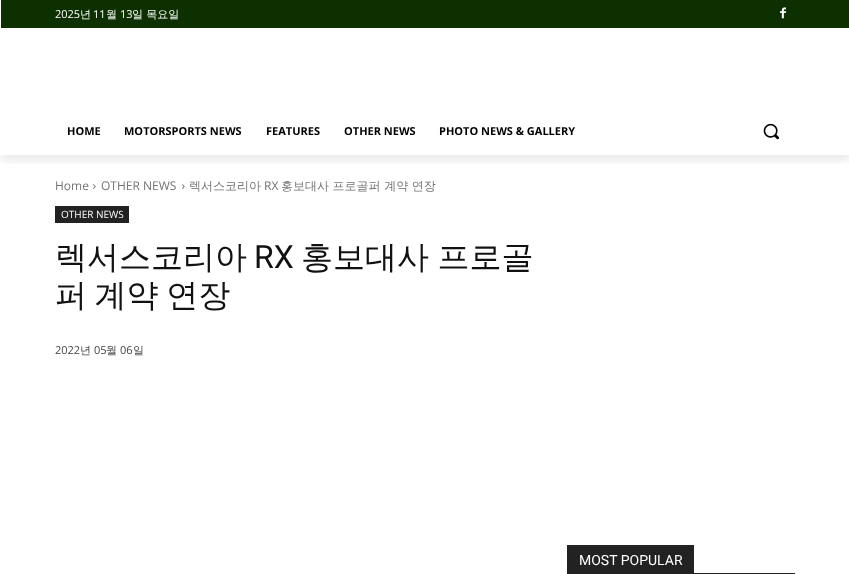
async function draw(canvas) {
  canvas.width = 849
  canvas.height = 574
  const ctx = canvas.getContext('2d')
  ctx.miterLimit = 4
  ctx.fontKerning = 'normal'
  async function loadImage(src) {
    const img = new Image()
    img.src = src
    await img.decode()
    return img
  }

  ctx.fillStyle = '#fff'
  ctx.fillRect(0, 0, 849, 574)
  ctx.fillStyle = '#0c3000'
  ctx.fillRect(1, 0, 848, 28)
  ctx.drawImage(await loadImage('image0.png'), 780, 7, 6, 12)
  ctx.save()
  ctx.beginPath()
  ctx.rect(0, 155, 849, 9)
  ctx.clip()
  ctx.fillStyle = '#00000014'
  ctx.filter = 'blur(4px)'
  ctx.beginPath()
  ctx.rect(1, 6, 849, 155)
  ctx.fill()
  ctx.filter = 'none'
  ctx.restore()
  ctx.font = '11px Open Sans'
  ctx.fillStyle = '#fff'
  ctx.fillText('2025', 55, 18)
  ctx.font = '500 11px WenQuanYi Zen Hei'
  ctx.fillText('년', 80, 18)
  ctx.font = '11px Open Sans'
  ctx.fillText('11', 93, 18)
  ctx.font = '500 11px WenQuanYi Zen Hei'
  ctx.fillText('월', 106, 18)
  ctx.font = '11px Open Sans'
  ctx.fillText('13', 120, 18)
  ctx.font = '500 11px WenQuanYi Zen Hei'
  ctx.fillText('일 목요일', 132, 18)
  ctx.font = 'bold 11px Open Sans'
  ctx.fillStyle = '#000'
  ctx.fillText('HOME', 67, 135)
  ctx.fillText('MOTORSPORTS NEWS', 124, 135)
  ctx.fillText('FEATURES', 266, 135)
  ctx.fillText('OTHER NEWS', 344, 135)
  ctx.fillText('PHOTO NEWS & GALLERY', 439, 135)
  ctx.drawImage(await loadImage('image1.png'), 763, 123, 16, 17)
  ctx.font = '12px Open Sans'
  ctx.fillStyle = '#747474'
  ctx.fillText('Home', 55, 190)
  ctx.drawImage(await loadImage('image2.png'), 93, 184, 3, 5)
  ctx.fillText('OTHER NEWS', 101, 190)
  ctx.drawImage(await loadImage('image2.png'), 182, 184, 3, 5)
  ctx.font = '500 12px WenQuanYi Zen Hei'
  ctx.fillText('렉서스코리아', 189, 190)
  ctx.font = '12px Open Sans'
  ctx.fillText('RX', 264, 190)
  ctx.font = '500 12px WenQuanYi Zen Hei'
  ctx.fillText('홍보대사 프로골퍼 계약 연장', 281, 190)
  ctx.fillStyle = '#222'
  ctx.fillRect(55, 206, 74, 17)
  ctx.font = '10px Open Sans'
  ctx.fillStyle = '#fff'
  ctx.fillText('OTHER NEWS', 61, 218)
  ctx.font = '500 32px WenQuanYi Zen Hei'
  ctx.fillStyle = '#111'
  ctx.fillText('렉서스코리아', 55, 268)
  ctx.font = '32px Roboto'
  ctx.fillText('RX', 254, 268)
  ctx.wordSpacing = '-1px'
  ctx.font = '500 32px WenQuanYi Zen Hei'
  ctx.fillText('홍보대사 프로골', 301, 268)
  ctx.wordSpacing = '-2px'
  ctx.fillText('퍼 계약 연장', 55, 306)
  ctx.wordSpacing = '0px'
  ctx.font = '11px Open Sans'
  ctx.fillStyle = '#444'
  ctx.fillText('2022', 55, 354)
  ctx.font = '500 11px WenQuanYi Zen Hei'
  ctx.fillText('년', 80, 354)
  ctx.font = '11px Open Sans'
  ctx.fillText('05', 94, 354)
  ctx.font = '500 11px WenQuanYi Zen Hei'
  ctx.fillText('월', 106, 354)
  ctx.font = '11px Open Sans'
  ctx.fillText('06', 120, 354)
  ctx.font = '500 11px WenQuanYi Zen Hei'
  ctx.fillText('일', 133, 354)
  ctx.fillStyle = '#222'
  ctx.fillRect(567, 573, 228, 1)
  ctx.fillRect(567, 545, 127, 28)
  ctx.font = '14px Roboto'
  ctx.fillStyle = '#fff'
  ctx.fillText('MOST POPULAR', 579, 565)
}

draw(document.querySelector('canvas'))
